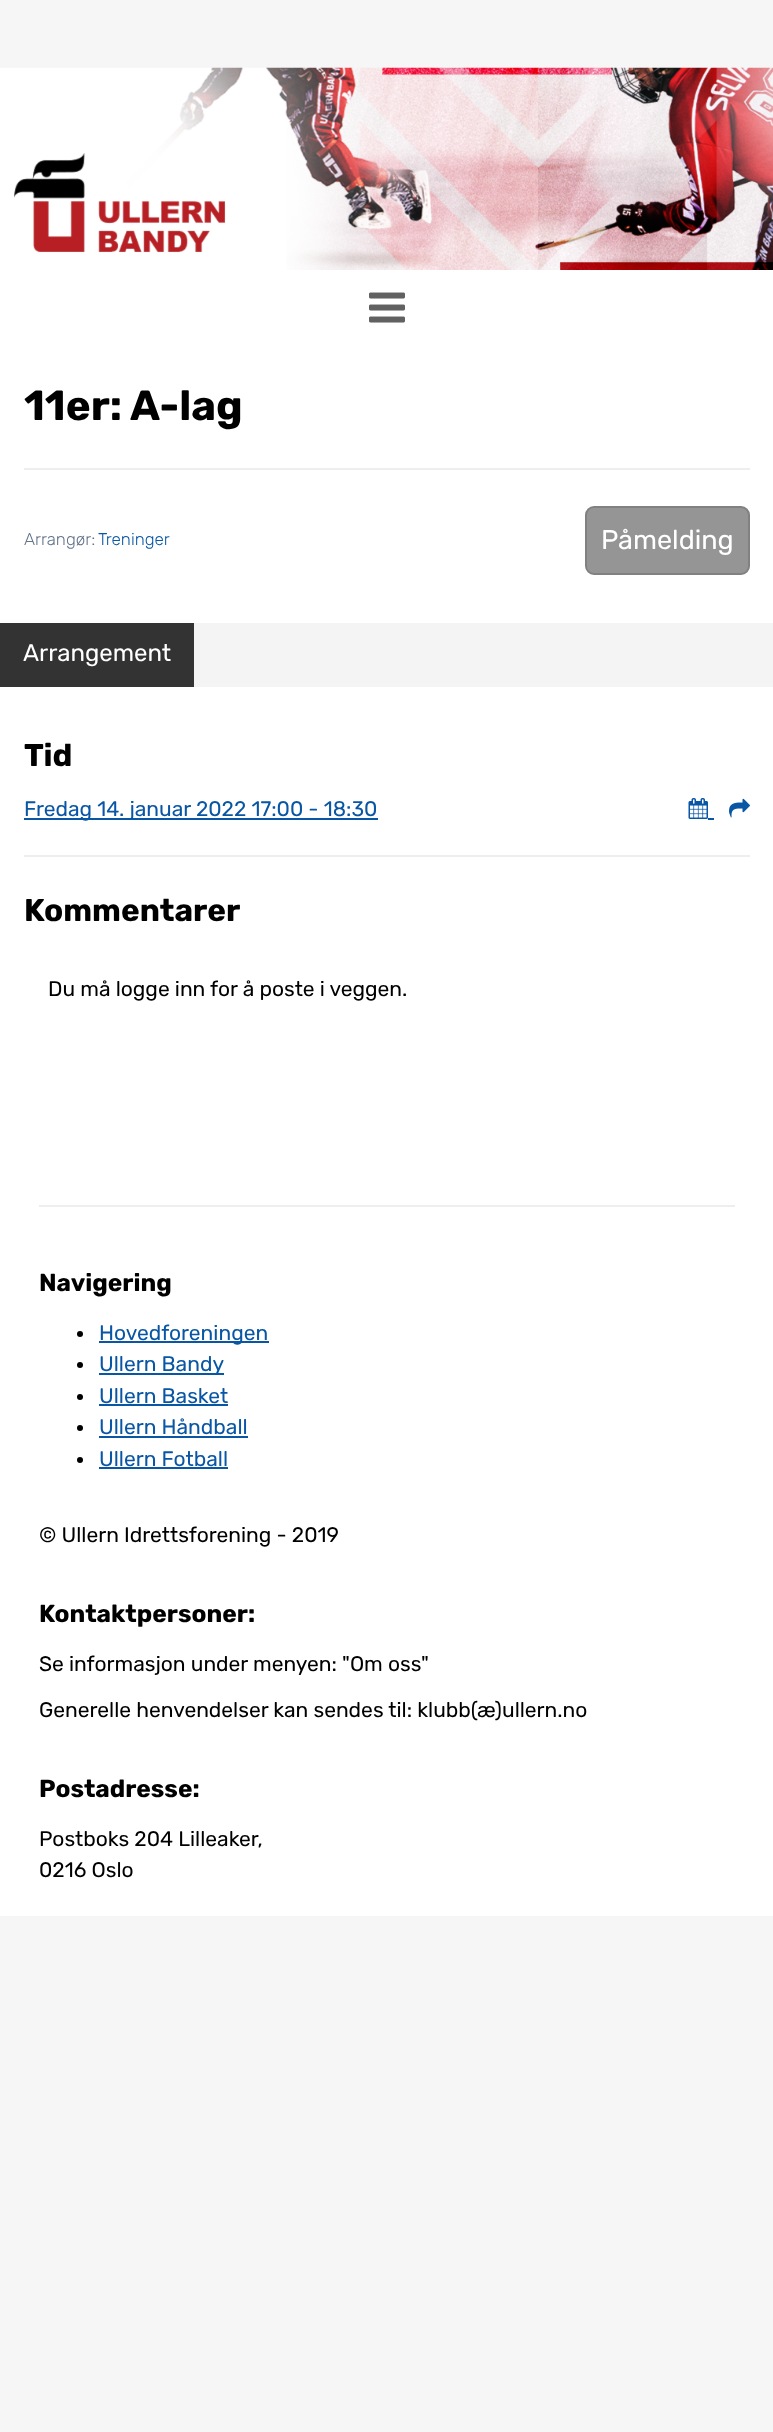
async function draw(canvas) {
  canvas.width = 773
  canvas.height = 2432
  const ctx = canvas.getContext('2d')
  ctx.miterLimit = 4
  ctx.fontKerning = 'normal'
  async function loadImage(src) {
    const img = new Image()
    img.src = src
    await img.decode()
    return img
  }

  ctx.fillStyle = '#f6f6f6'
  ctx.fillRect(0, 0, 773, 2432)
  ctx.drawImage(await loadImage('image0.png'), 0, 67, 773, 203)
  ctx.fillStyle = '#fff'
  ctx.fillRect(0, 270, 773, 1646)
  ctx.drawImage(await loadImage('image1.png'), 369, 292, 36, 31)
  ctx.font = 'bold 42px Rubik'
  ctx.fillStyle = '#000'
  ctx.fillText('11er: A-lag', 24, 420)
  ctx.fillStyle = '#eee'
  ctx.fillRect(24, 468, 726, 2)
  ctx.font = '300 17px Rubik'
  ctx.fillStyle = '#64748b'
  ctx.fillText('Arrangør:', 24, 545)
  ctx.fillStyle = '#0956a4'
  ctx.fillText('Treninger', 98, 545)
  ctx.fillStyle = '#959595'
  ctx.beginPath()
  ctx.roundRect(586, 507, 163, 67, 8)
  ctx.fill()
  ctx.strokeStyle = '#818181'
  ctx.lineWidth = 2
  ctx.stroke()
  ctx.font = '27px Rubik'
  ctx.fillStyle = '#fff'
  ctx.fillText('Påmelding', 601, 549)
  ctx.fillStyle = '#f4f4f4'
  ctx.fillRect(194, 623, 579, 64)
  ctx.fillStyle = '#333'
  ctx.fillRect(0, 623, 194, 64)
  ctx.font = '24px Rubik'
  ctx.fillStyle = '#fff'
  ctx.fillText('Arrangement', 23, 661)
  ctx.font = 'bold 31.5px Rubik'
  ctx.fillStyle = '#000'
  ctx.fillText('Tid', 24, 766)
  ctx.fillStyle = '#0956a4'
  ctx.fillRect(24, 818, 354, 2)
  ctx.font = '21px Rubik'
  ctx.fillText('Fredag 14. januar 2022 17:00 - 18:30', 24, 816)
  ctx.drawImage(await loadImage('image2.png'), 688, 798, 20, 21)
  ctx.fillRect(708, 818, 6, 2)
  ctx.drawImage(await loadImage('image3.png'), 729, 798, 21, 20)
  ctx.fillStyle = '#eee'
  ctx.fillRect(24, 855, 726, 2)
  ctx.font = 'bold 31.5px Rubik'
  ctx.fillStyle = '#000'
  ctx.fillText('Kommentarer', 24, 921)
  ctx.font = '21px Rubik'
  ctx.fillText('Du må logge inn for å poste i veggen.', 48, 996)
  ctx.fillStyle = '#eee'
  ctx.fillRect(39, 1205, 696, 2)
  ctx.font = 'bold 24.5px Rubik'
  ctx.fillStyle = '#000'
  ctx.fillText('Navigering', 39, 1291)
  ctx.beginPath()
  ctx.arc(80, 1334, 3, 0, 2 * Math.PI)
  ctx.fill()
  ctx.fillStyle = '#0956a4'
  ctx.fillRect(99, 1341, 170, 2)
  ctx.font = '21px Rubik'
  ctx.fillText('Hovedforeningen', 99, 1340)
  ctx.fillStyle = '#000'
  ctx.beginPath()
  ctx.arc(80, 1365, 3, 0, 2 * Math.PI)
  ctx.fill()
  ctx.fillStyle = '#0956a4'
  ctx.fillRect(99, 1373, 125, 2)
  ctx.fillText('Ullern Bandy', 99, 1371)
  ctx.fillStyle = '#000'
  ctx.beginPath()
  ctx.arc(80, 1397, 3, 0, 2 * Math.PI)
  ctx.fill()
  ctx.fillStyle = '#0956a4'
  ctx.fillText('Ullern Basket', 99, 1403)
  ctx.fillRect(99, 1404, 129, 2)
  ctx.fillStyle = '#000'
  ctx.beginPath()
  ctx.arc(80, 1428, 3, 0, 2 * Math.PI)
  ctx.fill()
  ctx.fillStyle = '#0956a4'
  ctx.fillText('Ullern Håndball', 99, 1434)
  ctx.fillRect(99, 1436, 149, 2)
  ctx.fillStyle = '#000'
  ctx.beginPath()
  ctx.arc(80, 1460, 3, 0, 2 * Math.PI)
  ctx.fill()
  ctx.fillStyle = '#0956a4'
  ctx.fillText('Ullern Fotball', 99, 1466)
  ctx.fillRect(99, 1467, 129, 2)
  ctx.fillStyle = '#000'
  ctx.fillText('© Ullern Idrettsforening - 2019', 39, 1542)
  ctx.font = 'bold 24.5px Rubik'
  ctx.fillText('Kontaktpersoner:', 39, 1622)
  ctx.font = '21px Rubik'
  ctx.fillText('Se informasjon under menyen: "Om oss"', 39, 1671)
  ctx.fillText('Generelle henvendelser kan sendes til: klubb(æ)ullern.no', 39, 1717)
  ctx.font = 'bold 24.5px Rubik'
  ctx.fillText('Postadresse:', 39, 1797)
  ctx.font = '21px Rubik'
  ctx.fillText('Postboks 204 Lilleaker,', 39, 1846)
  ctx.fillText('0216 Oslo', 39, 1877)
}

draw(document.querySelector('canvas'))
